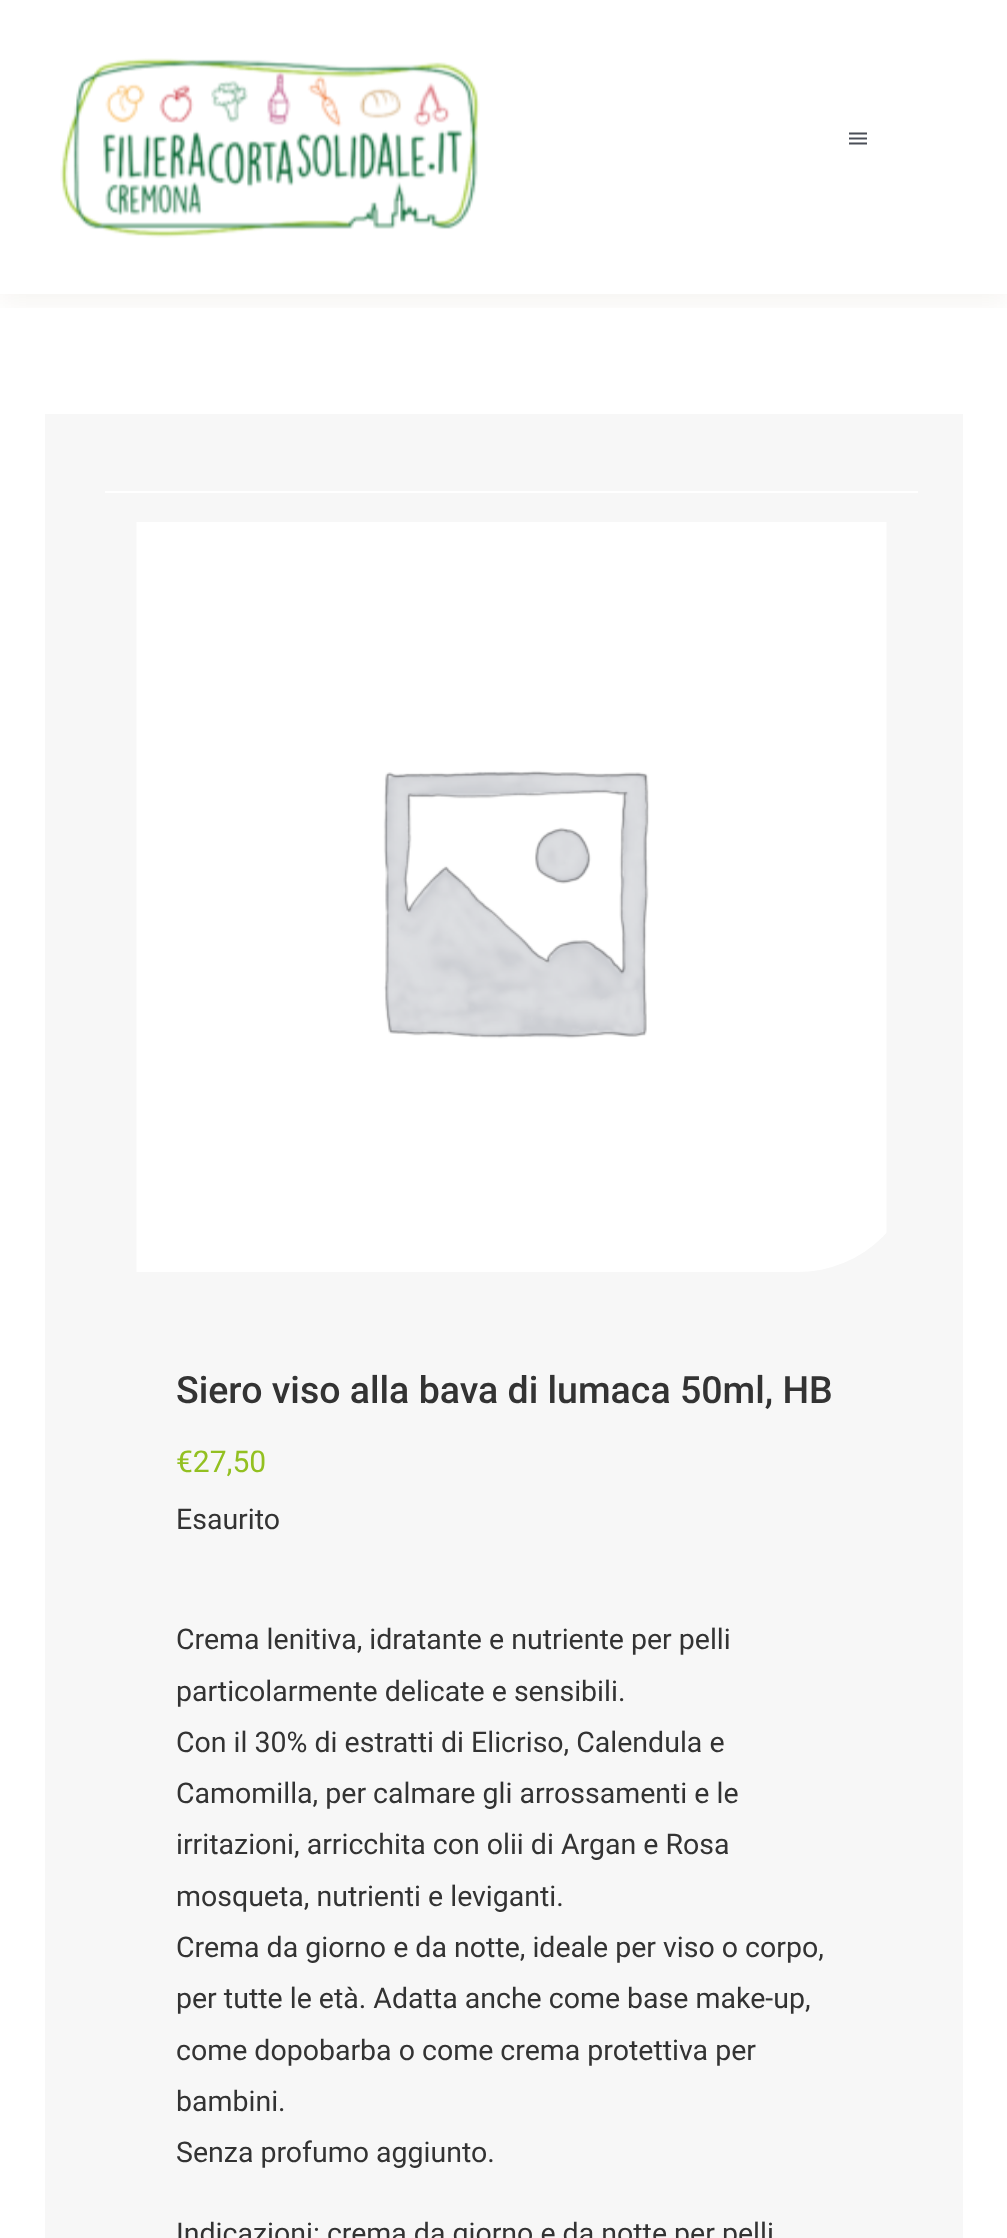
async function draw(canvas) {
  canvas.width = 1007
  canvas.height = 2238
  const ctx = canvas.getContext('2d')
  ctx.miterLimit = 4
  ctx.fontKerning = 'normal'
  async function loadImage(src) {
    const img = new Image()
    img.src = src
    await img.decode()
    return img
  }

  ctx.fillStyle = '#fff'
  ctx.fillRect(0, 0, 1007, 2238)
  ctx.save()
  ctx.beginPath()
  ctx.rect(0, 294, 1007, 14)
  ctx.clip()
  ctx.fillStyle = '#5b2d000f'
  ctx.filter = 'blur(15px)'
  ctx.beginPath()
  ctx.rect(0, 9, 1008, 293)
  ctx.fill()
  ctx.filter = 'none'
  ctx.restore()
  ctx.drawImage(await loadImage('image0.png'), 60, 58, 420, 180)
  ctx.drawImage(await loadImage('image1.png'), 849, 132, 18, 13)
  ctx.fillStyle = '#f7f7f7'
  ctx.fillRect(45, 414, 918, 1824)
  ctx.fillStyle = '#fff'
  ctx.fillRect(105, 491, 813, 2)
  ctx.drawImage(await loadImage('image2.png'), 136, 522, 751, 750)
  ctx.font = '500 37.5px Roboto'
  ctx.fillStyle = '#333'
  ctx.fillText('Siero viso alla bava di lumaca 50ml, HB', 176, 1403)
  ctx.font = '30px Roboto'
  ctx.fillStyle = '#93c021'
  ctx.fillText('€27,50', 176, 1472)
  ctx.font = '28.5px Roboto'
  ctx.fillStyle = '#333'
  ctx.fillText('Esaurito', 176, 1529)
  ctx.fillText('Crema lenitiva, idratante e nutriente per pelli', 176, 1649)
  ctx.fillText('particolarmente delicate e sensibili.', 176, 1701)
  ctx.fillText('Con il 30% di estratti di Elicriso, Calendula e', 176, 1752)
  ctx.fillText('Camomilla, per calmare gli arrossamenti e le', 176, 1803)
  ctx.fillText('irritazioni, arricchita con olii di Argan e Rosa', 176, 1854)
  ctx.fillText('mosqueta, nutrienti e leviganti.', 176, 1906)
  ctx.fillText('Crema da giorno e da notte, ideale per viso o corpo,', 176, 1957)
  ctx.fillText('per tutte le età. Adatta anche come base make-up,', 176, 2008)
  ctx.fillText('come dopobarba o come crema protettiva per', 176, 2060)
  ctx.fillText('bambini.', 176, 2111)
  ctx.fillText('Senza profumo aggiunto.', 176, 2162)
  ctx.fillText('Indicazioni: crema da giorno e da notte per pelli', 176, 2243)
}

draw(document.querySelector('canvas'))
